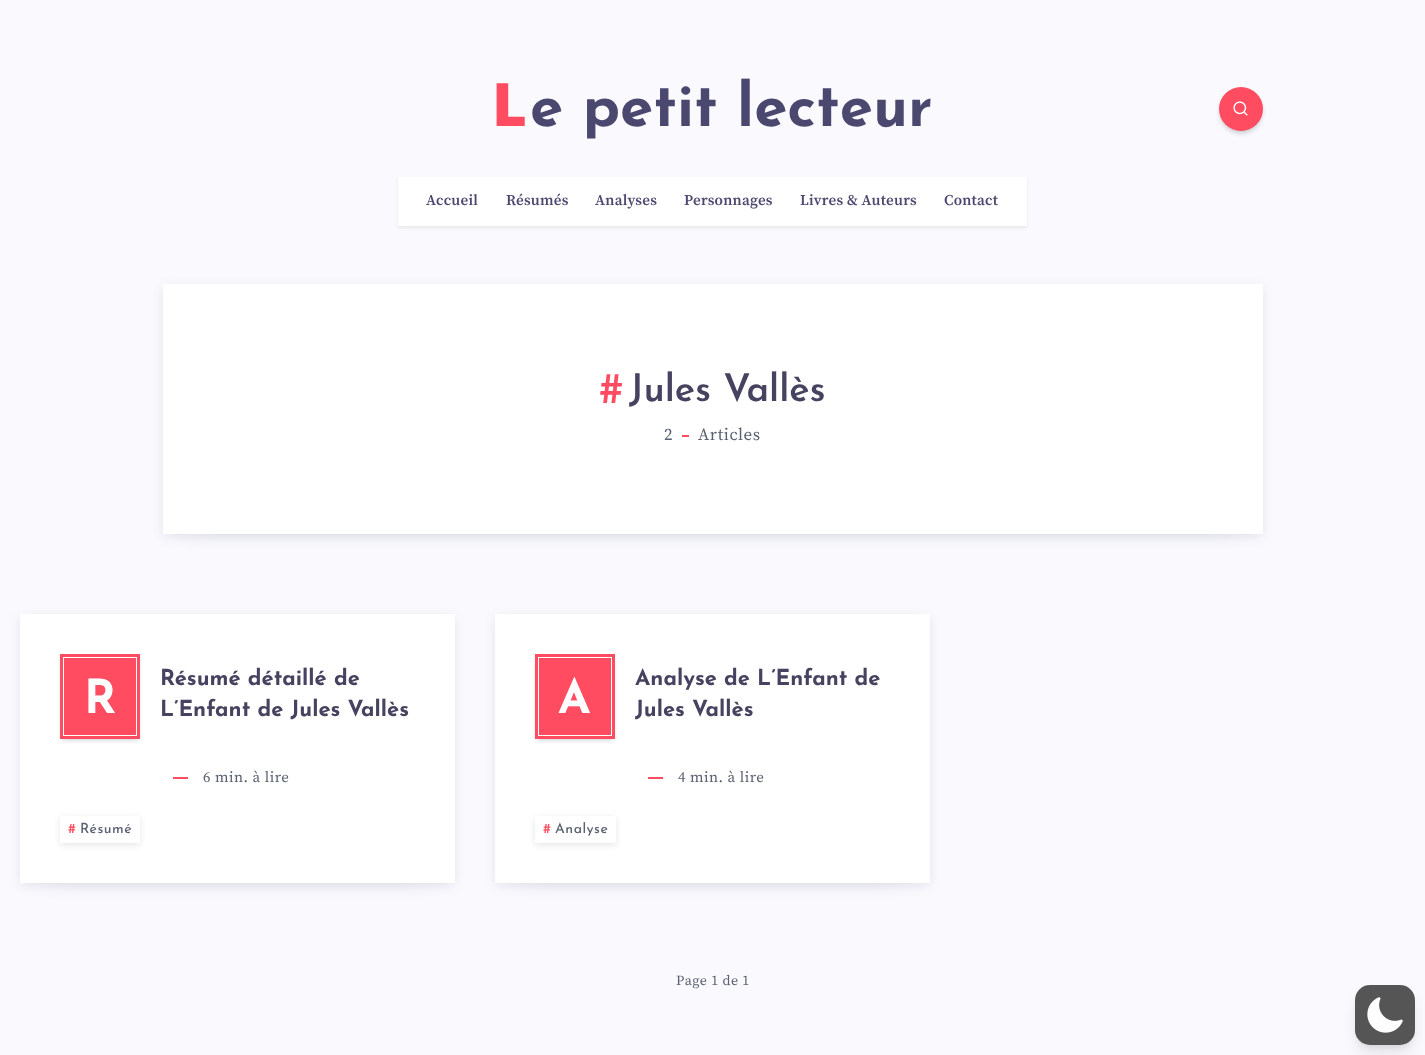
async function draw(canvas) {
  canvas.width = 1425
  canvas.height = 1055
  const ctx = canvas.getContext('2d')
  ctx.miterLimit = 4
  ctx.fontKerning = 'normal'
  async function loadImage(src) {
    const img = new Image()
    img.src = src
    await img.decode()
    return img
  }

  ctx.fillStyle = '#f9f9fe'
  ctx.fillRect(0, 0, 1425, 1055)
  ctx.font = '900 60px Noto Sans'
  ctx.fillStyle = '#ff4c60'
  ctx.fillText('L', 492, 126)
  ctx.font = 'bold 60px Josefin Sans'
  ctx.fillStyle = '#4b4870'
  ctx.fillText('e petit lecteur', 530, 126)
  ctx.fillStyle = '#070a1933'
  ctx.filter = 'blur(2.5px)'
  ctx.beginPath()
  ctx.roundRect(1220, 91, 42, 42, 21)
  ctx.fill()
  ctx.filter = 'none'
  ctx.fillStyle = '#ff4c60'
  ctx.beginPath()
  ctx.arc(1241, 109, 22, 0, 2 * Math.PI)
  ctx.fill()
  ctx.drawImage(await loadImage('image0.png'), 1233, 101, 15, 15)
  ctx.fillStyle = '#00000012'
  ctx.filter = 'blur(1.5px)'
  ctx.beginPath()
  ctx.rect(398, 179, 629, 49)
  ctx.fill()
  ctx.filter = 'none'
  ctx.fillStyle = '#fff'
  ctx.fillRect(398, 177, 629, 49)
  ctx.letterSpacing = '0.25px'
  ctx.font = '600 15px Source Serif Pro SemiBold'
  ctx.fillStyle = '#4b4870'
  ctx.fillText('Accueil', 426, 205)
  ctx.fillText('Résumés', 506, 205)
  ctx.fillText('Analyses', 595, 205)
  ctx.fillText('Personnages', 684, 205)
  ctx.fillText('Livres & Auteurs', 800, 205)
  ctx.fillText('Contact', 944, 205)
  ctx.fillStyle = '#070a191a'
  ctx.filter = 'blur(13.5px)'
  ctx.beginPath()
  ctx.rect(193, 336, 1040, 190)
  ctx.fill()
  ctx.filter = 'none'
  ctx.filter = 'blur(6px)'
  ctx.beginPath()
  ctx.rect(164, 288, 1098, 248)
  ctx.fill()
  ctx.filter = 'none'
  ctx.fillStyle = '#fff'
  ctx.fillRect(163, 284, 1100, 250)
  ctx.letterSpacing = '0px'
  ctx.font = '44px Josefin Sans'
  ctx.fillStyle = '#ff4c60'
  ctx.fillText('#', 599, 403)
  ctx.font = '600 38px Josefin Sans'
  ctx.fillStyle = '#454360'
  ctx.fillText('Jules Vallès', 629, 401)
  ctx.letterSpacing = '0.5px'
  ctx.font = '17px Source Serif Pro'
  ctx.fillStyle = '#596172'
  ctx.fillText('2', 664, 440)
  ctx.fillStyle = '#ff4c60'
  ctx.fillRect(682, 435, 7, 2)
  ctx.fillStyle = '#596172'
  ctx.fillText('Articles', 698, 440)
  ctx.fillStyle = '#070a191a'
  ctx.filter = 'blur(13.5px)'
  ctx.beginPath()
  ctx.rect(50, 666, 375, 209)
  ctx.fill()
  ctx.filter = 'none'
  ctx.filter = 'blur(6px)'
  ctx.beginPath()
  ctx.rect(21, 618, 433, 267)
  ctx.fill()
  ctx.filter = 'none'
  ctx.fillStyle = '#fff'
  ctx.fillRect(20, 614, 435, 269)
  ctx.fillStyle = '#070a1933'
  ctx.filter = 'blur(2.5px)'
  ctx.beginPath()
  ctx.rect(62, 659, 76, 81)
  ctx.fill()
  ctx.filter = 'none'
  ctx.fillStyle = '#ff4c60'
  ctx.fillRect(60, 654, 80, 85)
  ctx.strokeStyle = '#fff'
  ctx.strokeRect(63.5, 657.5, 73, 78)
  ctx.font = 'bold 47px Josefin Sans'
  ctx.fillStyle = '#fff'
  ctx.fillText('R', 84, 713)
  ctx.letterSpacing = '0px'
  ctx.font = 'bold 22px Josefin Sans'
  ctx.fillStyle = '#454360'
  ctx.fillText('Résumé détaillé de', 160, 685)
  ctx.fillText('L’Enfant de Jules Vallès', 160, 716)
  ctx.fillStyle = '#ff4c60'
  ctx.fillRect(173, 777, 15, 2)
  ctx.letterSpacing = '0.5px'
  ctx.font = '15px Source Serif Pro'
  ctx.fillStyle = '#596172'
  ctx.fillText('6 min. à lire', 203, 782)
  ctx.save()
  ctx.beginPath()
  ctx.moveTo(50, 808)
  ctx.lineTo(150, 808)
  ctx.lineTo(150, 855)
  ctx.lineTo(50, 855)
  ctx.closePath()
  ctx.moveTo(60, 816)
  ctx.lineTo(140, 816)
  ctx.lineTo(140, 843)
  ctx.lineTo(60, 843)
  ctx.closePath()
  ctx.clip('evenodd')
  ctx.fillStyle = '#070a191a'
  ctx.filter = 'blur(3px)'
  ctx.beginPath()
  ctx.rect(60, 818, 80, 27)
  ctx.fill()
  ctx.filter = 'none'
  ctx.restore()
  ctx.font = '500 14px Josefin Sans'
  ctx.fillStyle = '#ff4c60'
  ctx.fillText('#', 68, 833)
  ctx.fillStyle = '#596172'
  ctx.fillText('Résumé', 80, 833)
  ctx.fillStyle = '#070a191a'
  ctx.filter = 'blur(13.5px)'
  ctx.beginPath()
  ctx.rect(525, 666, 375, 209)
  ctx.fill()
  ctx.filter = 'none'
  ctx.filter = 'blur(6px)'
  ctx.beginPath()
  ctx.rect(496, 618, 433, 267)
  ctx.fill()
  ctx.filter = 'none'
  ctx.fillStyle = '#fff'
  ctx.fillRect(495, 614, 435, 269)
  ctx.fillStyle = '#070a1933'
  ctx.filter = 'blur(2.5px)'
  ctx.beginPath()
  ctx.rect(537, 659, 76, 81)
  ctx.fill()
  ctx.filter = 'none'
  ctx.fillStyle = '#ff4c60'
  ctx.fillRect(535, 654, 80, 85)
  ctx.strokeRect(538.5, 657.5, 73, 78)
  ctx.font = 'bold 47px Josefin Sans'
  ctx.fillStyle = '#fff'
  ctx.fillText('A', 558, 713)
  ctx.letterSpacing = '0px'
  ctx.font = 'bold 22px Josefin Sans'
  ctx.fillStyle = '#454360'
  ctx.fillText('Analyse de L’Enfant de', 635, 685)
  ctx.fillText('Jules Vallès', 635, 716)
  ctx.fillStyle = '#ff4c60'
  ctx.fillRect(648, 777, 15, 2)
  ctx.letterSpacing = '0.5px'
  ctx.font = '15px Source Serif Pro'
  ctx.fillStyle = '#596172'
  ctx.fillText('4 min. à lire', 678, 782)
  ctx.save()
  ctx.beginPath()
  ctx.moveTo(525, 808)
  ctx.lineTo(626, 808)
  ctx.lineTo(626, 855)
  ctx.lineTo(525, 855)
  ctx.closePath()
  ctx.moveTo(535, 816)
  ctx.lineTo(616, 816)
  ctx.lineTo(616, 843)
  ctx.lineTo(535, 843)
  ctx.closePath()
  ctx.clip('evenodd')
  ctx.fillStyle = '#070a191a'
  ctx.filter = 'blur(3px)'
  ctx.beginPath()
  ctx.rect(535, 818, 81, 27)
  ctx.fill()
  ctx.filter = 'none'
  ctx.restore()
  ctx.font = '500 14px Josefin Sans'
  ctx.fillStyle = '#ff4c60'
  ctx.fillText('#', 543, 833)
  ctx.fillStyle = '#596172'
  ctx.fillText('Analyse', 555, 833)
  ctx.font = '14px Source Serif Pro'
  ctx.fillText('Page 1 de 1', 676, 985)
  ctx.fillStyle = '#0000001a'
  ctx.filter = 'blur(3px)'
  ctx.beginPath()
  ctx.roundRect(1359, 993, 52, 52, 11)
  ctx.fill()
  ctx.filter = 'none'
  ctx.filter = 'blur(7.5px)'
  ctx.beginPath()
  ctx.roundRect(1358, 998, 54, 54, 12)
  ctx.fill()
  ctx.filter = 'none'
  ctx.fillStyle = '#555'
  ctx.beginPath()
  ctx.roundRect(1355, 985, 60, 60, 15)
  ctx.fill()
  ctx.drawImage(await loadImage('image1.png'), 1367, 997, 36, 36)
}

draw(document.querySelector('canvas'))
